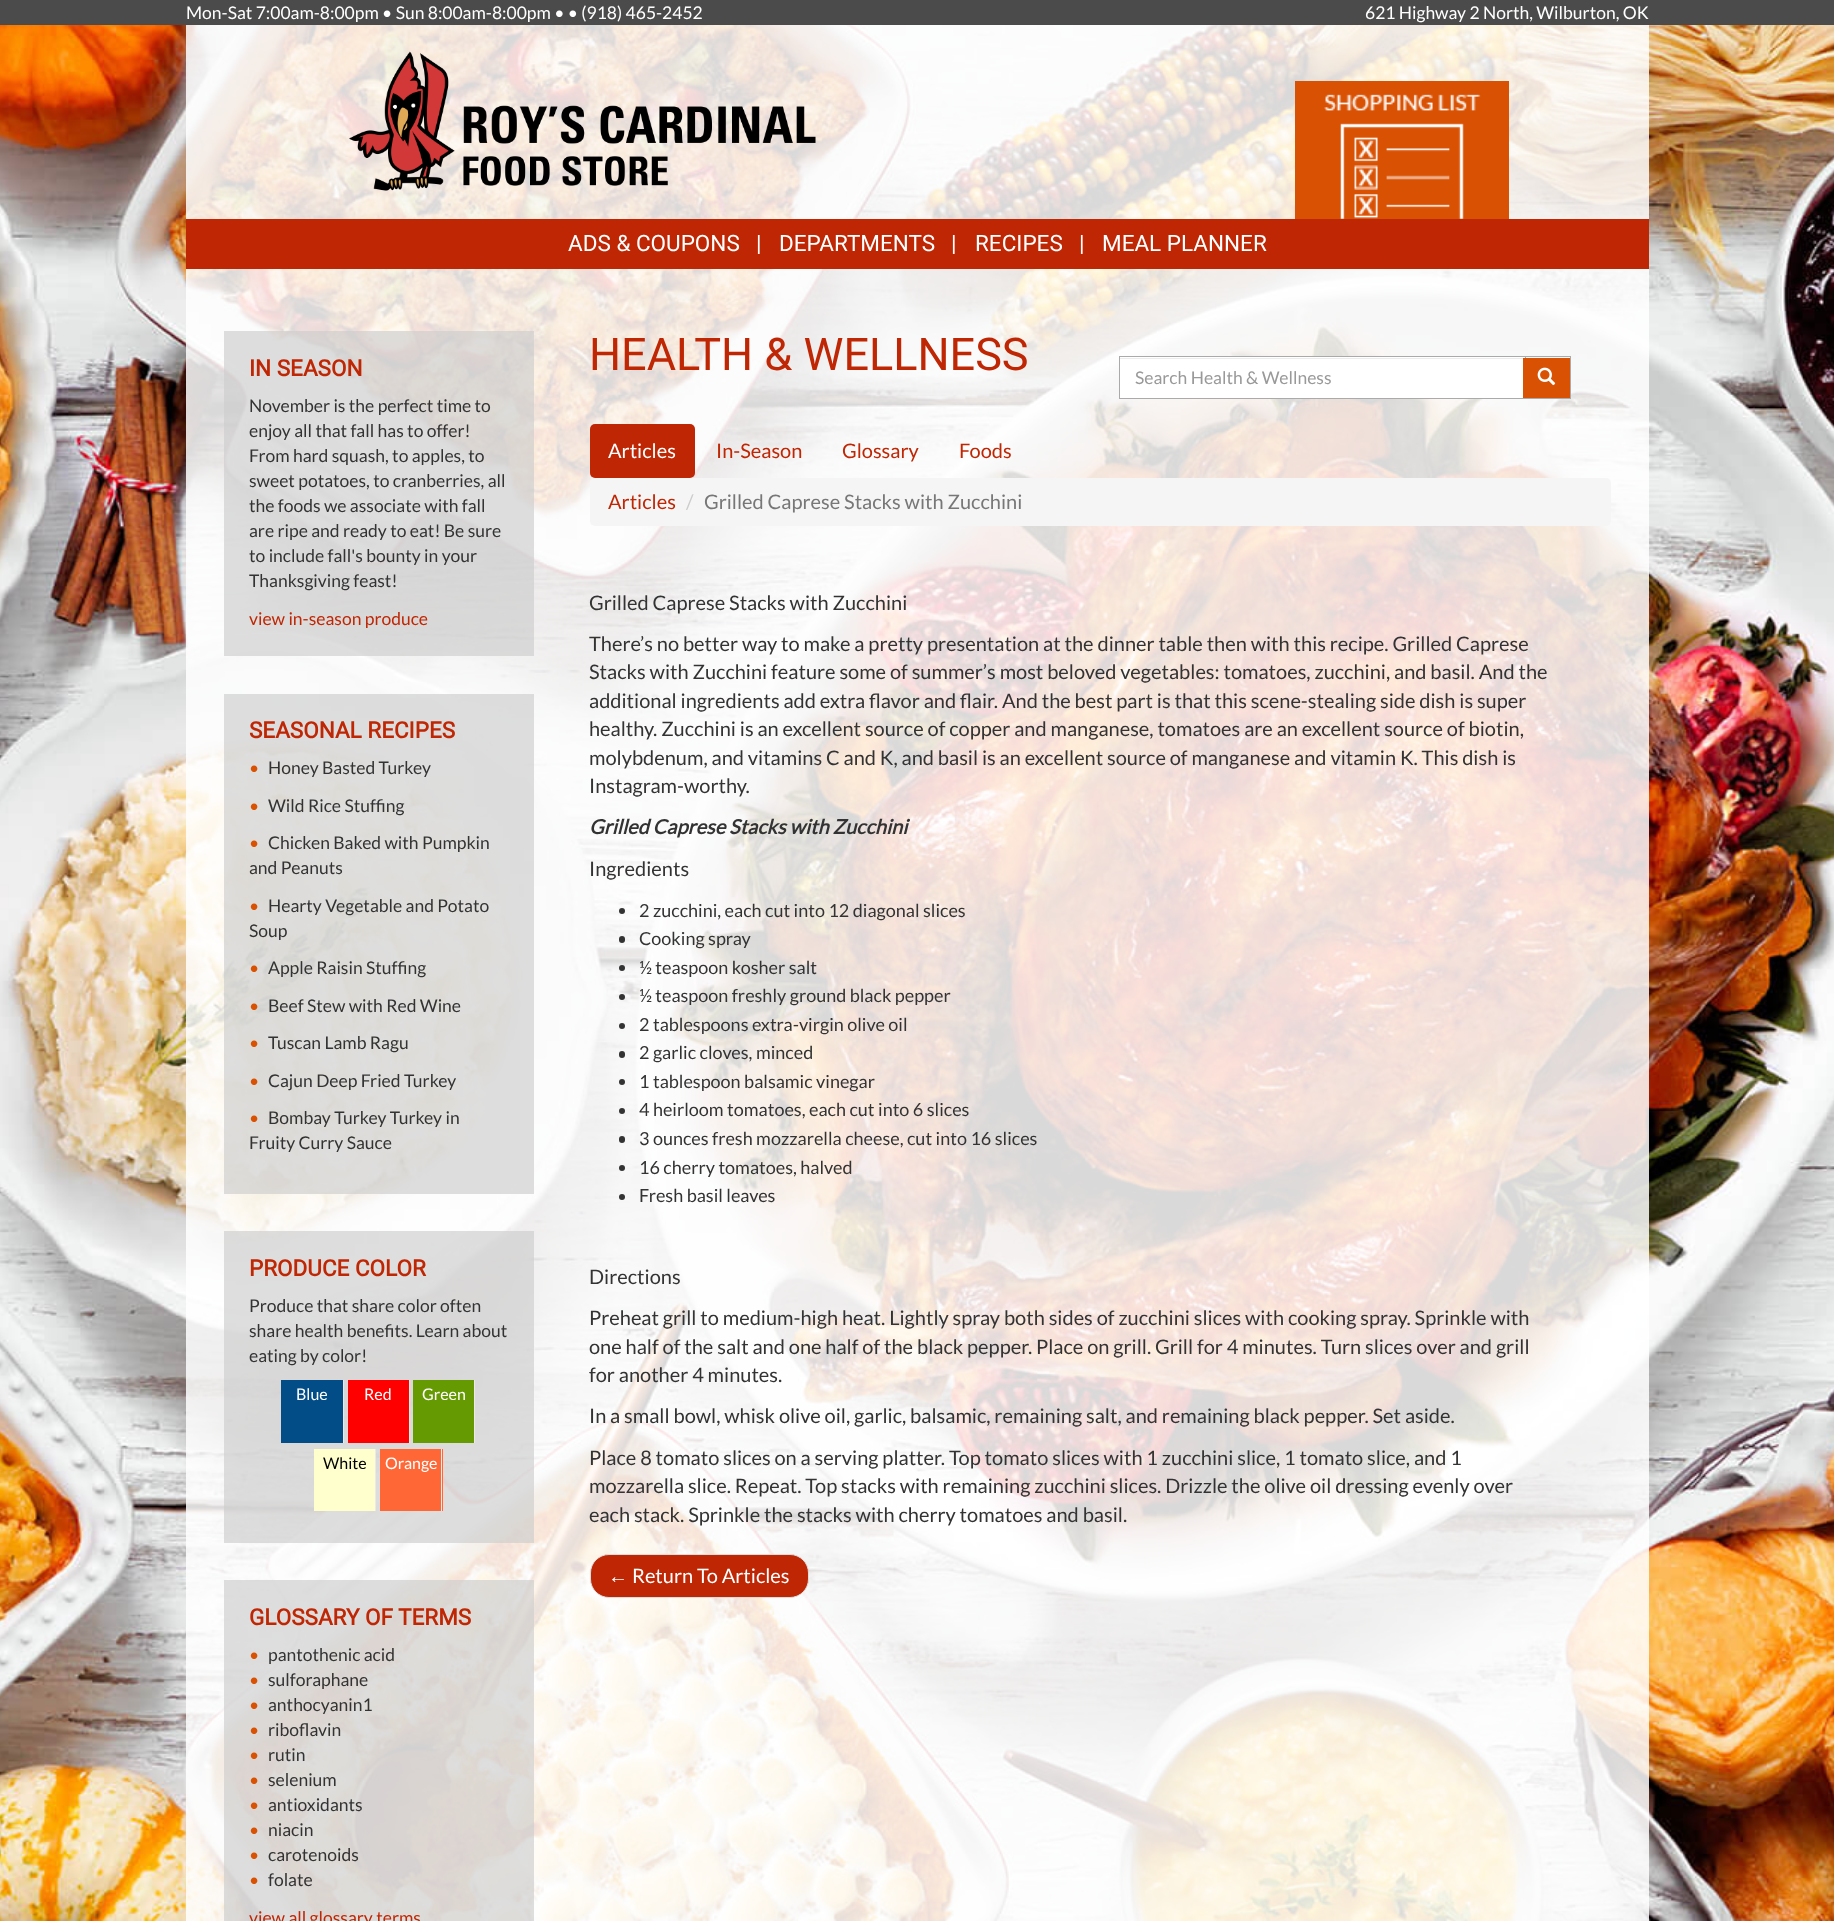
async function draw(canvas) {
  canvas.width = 1834
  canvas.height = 1921
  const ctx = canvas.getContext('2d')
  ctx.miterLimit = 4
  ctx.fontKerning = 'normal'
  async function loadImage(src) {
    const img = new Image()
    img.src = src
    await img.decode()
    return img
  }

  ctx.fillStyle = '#fff'
  ctx.fillRect(0, 0, 1834, 1921)
  ctx.drawImage(await loadImage('image0.png'), 0, 25, 1834, 1896)
  ctx.fillStyle = '#4b4b4b'
  ctx.fillRect(0, 0, 1834, 25)
  ctx.font = '17.5px Lato'
  ctx.fillStyle = '#fff'
  ctx.fillText('Mon-Sat 7:00am-8:00pm • Sun 8:00am-8:00pm • • (918) 465-2452', 186, 19)
  ctx.fillText('621 Highway 2 North, Wilburton, OK', 1365, 19)
  ctx.fillStyle = '#ffffffd9'
  ctx.fillRect(186, 25, 1463, 194)
  ctx.drawImage(await loadImage('image1.png'), 349, 51, 467, 140)
  ctx.fillStyle = '#d95204'
  ctx.fillRect(1295, 81, 214, 138)
  ctx.drawImage(await loadImage('image2.png'), 1324, 94, 157, 125)
  ctx.fillStyle = '#bf2604'
  ctx.fillRect(186, 219, 1463, 50)
  ctx.font = '22.5px Roboto'
  ctx.fillStyle = '#fff'
  ctx.fillText('ADS & COUPONS', 568, 251)
  ctx.fillText('|', 756, 251)
  ctx.fillText('DEPARTMENTS', 779, 251)
  ctx.fillText('|', 951, 251)
  ctx.fillText('RECIPES', 975, 251)
  ctx.fillText('|', 1079, 251)
  ctx.fillText('MEAL PLANNER', 1102, 251)
  ctx.fillStyle = '#ffffffd9'
  ctx.fillRect(186, 269, 1463, 1652)
  ctx.fillStyle = '#cccccca6'
  ctx.fillRect(224, 331, 310, 325)
  ctx.font = 'bold 22.5px Roboto'
  ctx.fillStyle = '#bf2604'
  ctx.fillText('IN SEASON', 249, 376)
  ctx.font = '17.5px Lato'
  ctx.fillStyle = '#333'
  ctx.fillText('November is the perfect time to', 249, 412)
  ctx.fillText('enjoy all that fall has to offer!', 249, 437)
  ctx.fillText('From hard squash, to apples, to', 249, 462)
  ctx.fillText('sweet potatoes, to cranberries, all', 249, 487)
  ctx.fillText('the foods we associate with fall', 249, 512)
  ctx.fillText('are ripe and ready to eat! Be sure', 249, 537)
  ctx.fillText('to include fall\'s bounty in your', 249, 562)
  ctx.fillText('Thanksgiving feast!', 249, 587)
  ctx.fillStyle = '#bf2604'
  ctx.fillText('view in-season produce', 249, 625)
  ctx.fillStyle = '#cccccca6'
  ctx.fillRect(224, 694, 310, 500)
  ctx.font = 'bold 22.5px Roboto'
  ctx.fillStyle = '#bf2604'
  ctx.fillText('SEASONAL RECIPES', 249, 738)
  ctx.font = '17.5px Lato'
  ctx.fillStyle = '#d95204'
  ctx.fillText('•', 249, 774)
  ctx.fillStyle = '#333'
  ctx.fillText('Honey Basted Turkey', 268, 774)
  ctx.fillStyle = '#d95204'
  ctx.fillText('•', 249, 812)
  ctx.fillStyle = '#333'
  ctx.fillText('Wild Rice Stuffing', 268, 812)
  ctx.fillStyle = '#d95204'
  ctx.fillText('•', 249, 849)
  ctx.fillStyle = '#333'
  ctx.fillText('Chicken Baked with Pumpkin', 268, 849)
  ctx.fillText('and Peanuts', 249, 874)
  ctx.fillStyle = '#d95204'
  ctx.fillText('•', 249, 912)
  ctx.fillStyle = '#333'
  ctx.fillText('Hearty Vegetable and Potato', 268, 912)
  ctx.fillText('Soup', 249, 937)
  ctx.fillStyle = '#d95204'
  ctx.fillText('•', 249, 974)
  ctx.fillStyle = '#333'
  ctx.fillText('Apple Raisin Stuffing', 268, 974)
  ctx.fillStyle = '#d95204'
  ctx.fillText('•', 249, 1012)
  ctx.fillStyle = '#333'
  ctx.fillText('Beef Stew with Red Wine', 268, 1012)
  ctx.fillStyle = '#d95204'
  ctx.fillText('•', 249, 1049)
  ctx.fillStyle = '#333'
  ctx.fillText('Tuscan Lamb Ragu', 268, 1049)
  ctx.fillStyle = '#d95204'
  ctx.fillText('•', 249, 1087)
  ctx.fillStyle = '#333'
  ctx.fillText('Cajun Deep Fried Turkey', 268, 1087)
  ctx.fillStyle = '#d95204'
  ctx.fillText('•', 249, 1124)
  ctx.fillStyle = '#333'
  ctx.fillText('Bombay Turkey Turkey in', 268, 1124)
  ctx.fillText('Fruity Curry Sauce', 249, 1149)
  ctx.fillStyle = '#cccccca6'
  ctx.fillRect(224, 1231, 310, 312)
  ctx.font = 'bold 22.5px Roboto'
  ctx.fillStyle = '#bf2604'
  ctx.fillText('PRODUCE COLOR', 249, 1276)
  ctx.font = '17.5px Lato'
  ctx.fillStyle = '#333'
  ctx.fillText('Produce that share color often', 249, 1312)
  ctx.fillText('share health benefits. Learn about', 249, 1337)
  ctx.fillText('eating by color!', 249, 1362)
  ctx.fillStyle = '#024d87'
  ctx.fillRect(281, 1380, 62, 63)
  ctx.fillStyle = '#edeae5'
  ctx.fillRect(343, 1380, 1, 63)
  ctx.font = '16px Lato'
  ctx.fillStyle = '#fff'
  ctx.fillText('Blue', 296, 1400)
  ctx.fillStyle = '#f00'
  ctx.fillRect(348, 1380, 61, 63)
  ctx.fillStyle = '#edeae5'
  ctx.fillRect(409, 1380, 1, 63)
  ctx.fillStyle = '#fff'
  ctx.fillText('Red', 364, 1400)
  ctx.fillStyle = '#659a02'
  ctx.fillRect(413, 1380, 61, 63)
  ctx.fillStyle = '#edeae5'
  ctx.fillRect(474, 1380, 1, 63)
  ctx.fillStyle = '#fff'
  ctx.fillText('Green', 422, 1400)
  ctx.fillStyle = '#ffffcd'
  ctx.fillRect(314, 1449, 61, 62)
  ctx.fillStyle = '#edeae5'
  ctx.fillRect(375, 1449, 1, 62)
  ctx.fillStyle = '#000'
  ctx.fillText('White', 323, 1469)
  ctx.fillStyle = '#ff6736'
  ctx.fillRect(380, 1449, 63, 62)
  ctx.fillStyle = '#edeae5'
  ctx.fillRect(441, 1449, 1, 62)
  ctx.fillStyle = '#fff'
  ctx.fillText('Orange', 385, 1469)
  ctx.fillStyle = '#cccccca6'
  ctx.fillRect(224, 1580, 310, 341)
  ctx.font = 'bold 22.5px Roboto'
  ctx.fillStyle = '#bf2604'
  ctx.fillText('GLOSSARY OF TERMS', 249, 1625)
  ctx.font = '17.5px Lato'
  ctx.fillStyle = '#d95204'
  ctx.fillText('•', 249, 1661)
  ctx.fillStyle = '#333'
  ctx.fillText('pantothenic acid', 268, 1661)
  ctx.fillStyle = '#d95204'
  ctx.fillText('•', 249, 1686)
  ctx.fillStyle = '#333'
  ctx.fillText('sulforaphane', 268, 1686)
  ctx.fillStyle = '#d95204'
  ctx.fillText('•', 249, 1711)
  ctx.fillStyle = '#333'
  ctx.fillText('anthocyanin1', 268, 1711)
  ctx.fillStyle = '#d95204'
  ctx.fillText('•', 249, 1736)
  ctx.fillStyle = '#333'
  ctx.fillText('riboflavin', 268, 1736)
  ctx.fillStyle = '#d95204'
  ctx.fillText('•', 249, 1761)
  ctx.fillStyle = '#333'
  ctx.fillText('rutin', 268, 1761)
  ctx.fillStyle = '#d95204'
  ctx.fillText('•', 249, 1786)
  ctx.fillStyle = '#333'
  ctx.fillText('selenium', 268, 1786)
  ctx.fillStyle = '#d95204'
  ctx.fillText('•', 249, 1811)
  ctx.fillStyle = '#333'
  ctx.fillText('antioxidants', 268, 1811)
  ctx.fillStyle = '#d95204'
  ctx.fillText('•', 249, 1836)
  ctx.fillStyle = '#333'
  ctx.fillText('niacin', 268, 1836)
  ctx.fillStyle = '#d95204'
  ctx.fillText('•', 249, 1861)
  ctx.fillStyle = '#333'
  ctx.fillText('carotenoids', 268, 1861)
  ctx.fillStyle = '#d95204'
  ctx.fillText('•', 249, 1886)
  ctx.fillStyle = '#333'
  ctx.fillText('folate', 268, 1886)
  ctx.fillStyle = '#bf2604'
  ctx.fillText('view all glossary terms', 249, 1924)
  ctx.font = '45px Roboto'
  ctx.fillText('HEALTH & WELLNESS', 589, 370)
  ctx.fillStyle = '#fff'
  ctx.fillRect(1120, 357, 405, 41)
  ctx.fillStyle = '#ececec'
  ctx.fillRect(1120, 358, 405, 1)
  ctx.strokeStyle = '#aaa'
  ctx.strokeRect(1119.5, 356.5, 406, 42)
  ctx.font = '17.5px Lato'
  ctx.fillStyle = '#999'
  ctx.fillText('Search Health & Wellness', 1135, 384)
  ctx.fillStyle = '#d95204'
  ctx.fillRect(1523, 358, 47, 40)
  ctx.fillStyle = '#aaa'
  ctx.fillRect(1523, 356, 48, 1)
  ctx.fillRect(1570, 356, 1, 43)
  ctx.fillRect(1523, 398, 48, 1)
  ctx.drawImage(await loadImage('image3.png'), 1537, 367, 19, 19)
  ctx.fillStyle = '#bf2604'
  ctx.beginPath()
  ctx.roundRect(590, 424, 105, 54, 5)
  ctx.fill()
  ctx.font = '20px Lato'
  ctx.fillStyle = '#fff'
  ctx.fillText('Articles', 608, 458)
  ctx.fillStyle = '#bf2604'
  ctx.fillText('In-Season', 716, 458)
  ctx.fillText('Glossary', 842, 458)
  ctx.fillText('Foods', 959, 458)
  ctx.fillStyle = '#f5f5f5'
  ctx.beginPath()
  ctx.roundRect(590, 478, 1021, 48, 5)
  ctx.fill()
  ctx.fillStyle = '#bf2604'
  ctx.fillText('Articles', 608, 509)
  ctx.fillStyle = '#ccc'
  ctx.fillText('/', 686, 509)
  ctx.fillStyle = '#777'
  ctx.fillText('Grilled Caprese Stacks with Zucchini', 704, 509)
  ctx.fillStyle = '#333'
  ctx.fillText('Grilled Caprese Stacks with Zucchini', 589, 610)
  ctx.fillText('There’s no better way to make a pretty presentation at the dinner table then with this recipe. Grilled Caprese', 589, 651)
  ctx.fillText('Stacks with Zucchini feature some of summer’s most beloved vegetables: tomatoes, zucchini, and basil. And the', 589, 679)
  ctx.fillText('additional ingredients add extra flavor and flair. And the best part is that this scene-stealing side dish is super', 589, 708)
  ctx.fillText('healthy. Zucchini is an excellent source of copper and manganese, tomatoes are an excellent source of biotin,', 589, 736)
  ctx.fillText('molybdenum, and vitamins C and K, and basil is an excellent source of manganese and vitamin K. This dish is', 589, 765)
  ctx.fillText('Instagram-worthy.', 589, 793)
  ctx.font = 'italic bold 20px Lato'
  ctx.fillText('Grilled Caprese Stacks with Zucchini', 589, 834)
  ctx.font = '20px Lato'
  ctx.fillText('Ingredients', 589, 876)
  ctx.beginPath()
  ctx.arc(622, 911, 3, 0, 2 * Math.PI)
  ctx.fill()
  ctx.font = '18px Lato'
  ctx.fillText('2 zucchini, each cut into 12 diagonal slices', 639, 917)
  ctx.beginPath()
  ctx.roundRect(619, 936, 6, 7, 3)
  ctx.fill()
  ctx.fillText('Cooking spray', 639, 945)
  ctx.beginPath()
  ctx.arc(622, 968, 3, 0, 2 * Math.PI)
  ctx.fill()
  ctx.fillText('½ teaspoon kosher salt', 639, 974)
  ctx.beginPath()
  ctx.arc(622, 997, 3, 0, 2 * Math.PI)
  ctx.fill()
  ctx.fillText('½ teaspoon freshly ground black pepper', 639, 1002)
  ctx.beginPath()
  ctx.arc(622, 1026, 3, 0, 2 * Math.PI)
  ctx.fill()
  ctx.fillText('2 tablespoons extra-virgin olive oil', 639, 1031)
  ctx.beginPath()
  ctx.roundRect(619, 1051, 6, 7, 3)
  ctx.fill()
  ctx.fillText('2 garlic cloves, minced', 639, 1059)
  ctx.beginPath()
  ctx.arc(622, 1082, 3, 0, 2 * Math.PI)
  ctx.fill()
  ctx.fillText('1 tablespoon balsamic vinegar', 639, 1088)
  ctx.beginPath()
  ctx.arc(622, 1111, 3, 0, 2 * Math.PI)
  ctx.fill()
  ctx.fillText('4 heirloom tomatoes, each cut into 6 slices', 639, 1116)
  ctx.beginPath()
  ctx.roundRect(619, 1136, 6, 7, 3)
  ctx.fill()
  ctx.fillText('3 ounces fresh mozzarella cheese, cut into 16 slices', 639, 1145)
  ctx.beginPath()
  ctx.arc(622, 1168, 3, 0, 2 * Math.PI)
  ctx.fill()
  ctx.fillText('16 cherry tomatoes, halved', 639, 1174)
  ctx.beginPath()
  ctx.arc(622, 1197, 3, 0, 2 * Math.PI)
  ctx.fill()
  ctx.fillText('Fresh basil leaves', 639, 1202)
  ctx.font = '20px Lato'
  ctx.fillText('Directions', 589, 1284)
  ctx.fillText('Preheat grill to medium-high heat. Lightly spray both sides of zucchini slices with cooking spray. Sprinkle with', 589, 1325)
  ctx.fillText('one half of the salt and one half of the black pepper. Place on grill. Grill for 4 minutes. Turn slices over and grill', 589, 1354)
  ctx.fillText('for another 4 minutes.', 589, 1382)
  ctx.fillText('In a small bowl, whisk olive oil, garlic, balsamic, remaining salt, and remaining black pepper. Set aside.', 589, 1423)
  ctx.fillText('Place 8 tomato slices on a serving platter. Top tomato slices with 1 zucchini slice, 1 tomato slice, and 1', 589, 1465)
  ctx.fillText('mozzarella slice. Repeat. Top stacks with remaining zucchini slices. Drizzle the olive oil dressing evenly over', 589, 1493)
  ctx.fillText('each stack. Sprinkle the stacks with cherry tomatoes and basil.', 589, 1522)
  ctx.fillStyle = '#bf2604'
  ctx.beginPath()
  ctx.roundRect(590.5, 1554.5, 218, 43, 18.5)
  ctx.fill()
  ctx.strokeStyle = '#ddd'
  ctx.stroke()
  ctx.font = '20px Liberation Sans'
  ctx.fillStyle = '#fff'
  ctx.fillText('←', 608, 1583)
  ctx.font = '20px Lato'
  ctx.fillText('Return To Articles', 632, 1583)
}

draw(document.querySelector('canvas'))
